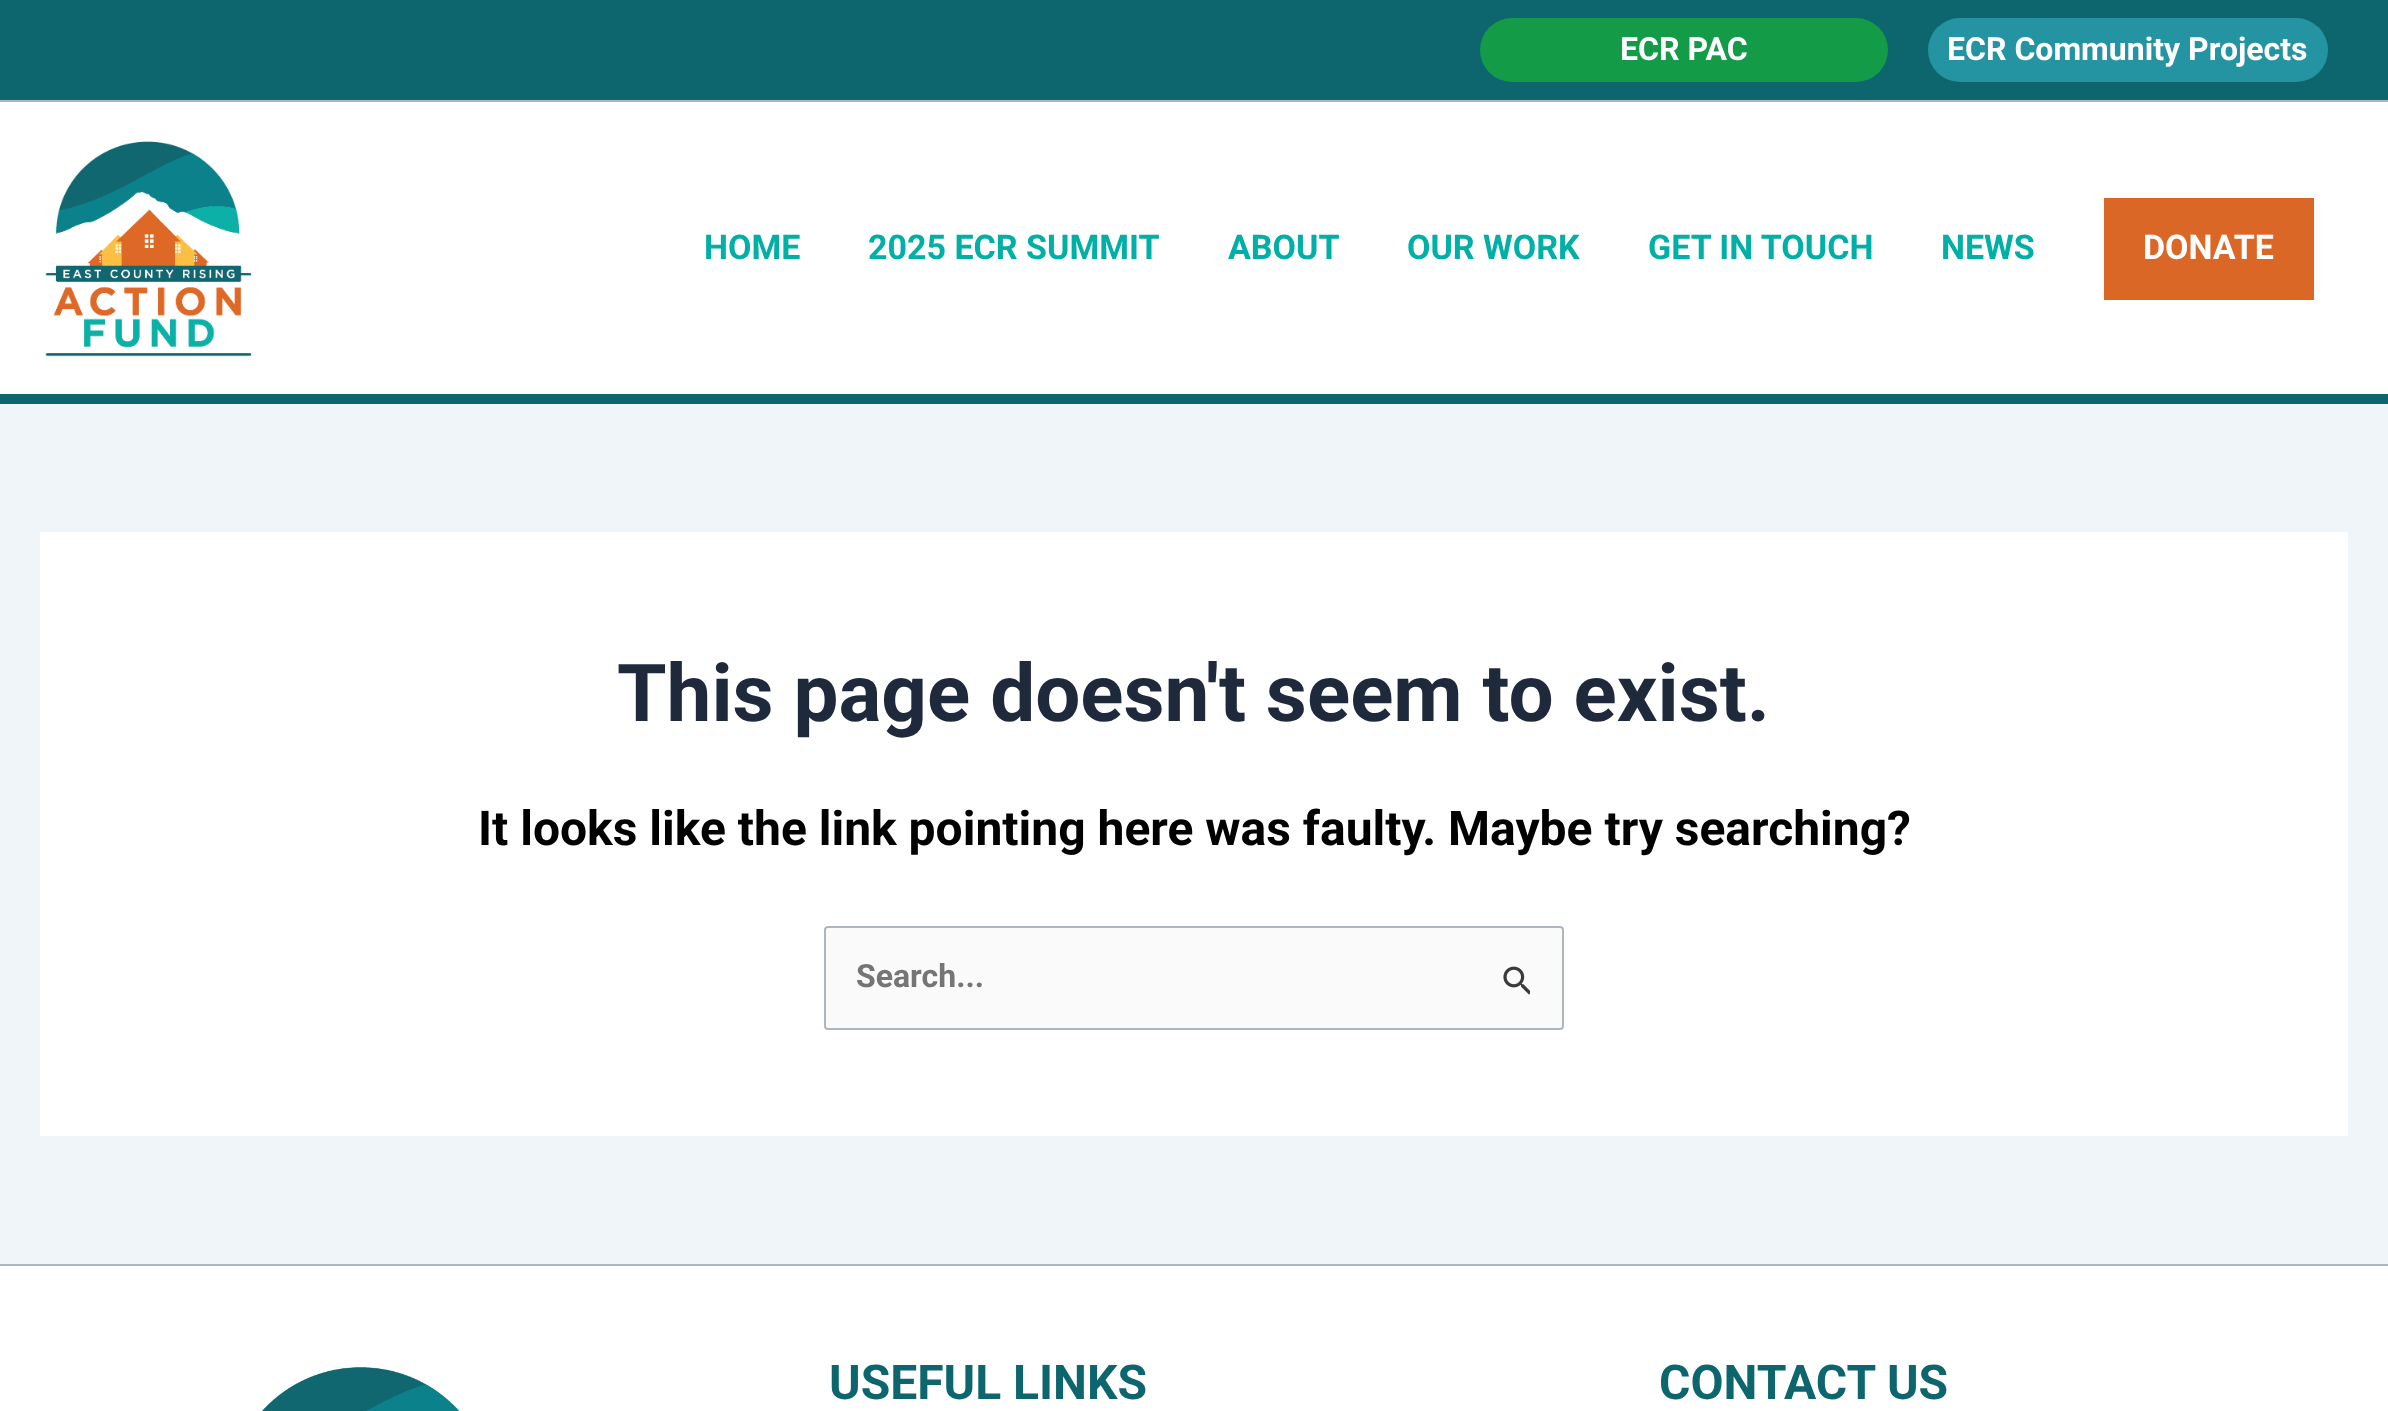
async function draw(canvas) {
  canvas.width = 2388
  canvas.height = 1411
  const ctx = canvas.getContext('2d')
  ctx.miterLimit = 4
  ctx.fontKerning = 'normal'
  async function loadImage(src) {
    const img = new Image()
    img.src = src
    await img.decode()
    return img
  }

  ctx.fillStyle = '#f0f5fa'
  ctx.fillRect(0, 0, 2388, 1411)
  ctx.fillStyle = '#0d666e'
  ctx.fillRect(0, 0, 2388, 100)
  ctx.fillStyle = '#adb6be'
  ctx.fillRect(0, 100, 2388, 2)
  ctx.fillStyle = '#139b48'
  ctx.beginPath()
  ctx.roundRect(1480, 18, 408, 64, 32)
  ctx.fill()
  ctx.font = 'bold 32px Roboto'
  ctx.fillStyle = '#fff'
  ctx.fillText('ECR PAC', 1620, 60)
  ctx.fillStyle = '#2494a2'
  ctx.beginPath()
  ctx.roundRect(1928, 18, 400, 64, 32)
  ctx.fill()
  ctx.fillStyle = '#fff'
  ctx.fillText('ECR Community Projects', 1947, 60)
  ctx.fillRect(0, 102, 2388, 292)
  ctx.fillStyle = '#0d666e'
  ctx.fillRect(0, 394, 2388, 10)
  ctx.drawImage(await loadImage('image0.png'), 45, 141, 207, 216)
  ctx.font = 'bold 34px Roboto'
  ctx.fillStyle = '#00afa6'
  ctx.fillText('HOME', 704, 259)
  ctx.fillText('2025 ECR SUMMIT', 868, 259)
  ctx.fillText('ABOUT', 1228, 259)
  ctx.fillText('OUR WORK', 1407, 259)
  ctx.fillText('GET IN TOUCH', 1648, 259)
  ctx.fillText('NEWS', 1941, 259)
  ctx.fillStyle = '#db6726'
  ctx.fillRect(2104, 198, 210, 102)
  ctx.fillStyle = '#fff'
  ctx.fillText('DONATE', 2143, 259)
  ctx.fillRect(40, 532, 2308, 604)
  ctx.font = 'bold 80px Roboto'
  ctx.fillStyle = '#1e293b'
  ctx.fillText('This page doesn\'t seem to exist.', 617, 721)
  ctx.font = 'bold 48px Roboto'
  ctx.fillStyle = '#000'
  ctx.fillText('It looks like the link pointing here was faulty. Maybe try searching?', 478, 845)
  ctx.fillStyle = '#fafafa'
  ctx.beginPath()
  ctx.roundRect(825, 927, 738, 102, 3)
  ctx.fill()
  ctx.strokeStyle = '#adb6be'
  ctx.lineWidth = 2
  ctx.stroke()
  ctx.font = 'bold 32px Roboto'
  ctx.fillStyle = '#757575'
  ctx.fillText('Search...', 856, 987)
  ctx.drawImage(await loadImage('image1.png'), 1503, 966, 27, 29)
  ctx.fillStyle = '#fff'
  ctx.fillRect(0, 1266, 2388, 145)
  ctx.fillStyle = '#adb6be'
  ctx.fillRect(0, 1264, 2388, 2)
  ctx.drawImage(await loadImage('image2.png'), 262, 1367, 198, 44)
  ctx.font = 'bold 48px Roboto'
  ctx.fillStyle = '#0d666e'
  ctx.fillText('USEFUL LINKS', 829, 1399)
  ctx.fillText('CONTACT US', 1659, 1399)
}

draw(document.querySelector('canvas'))
